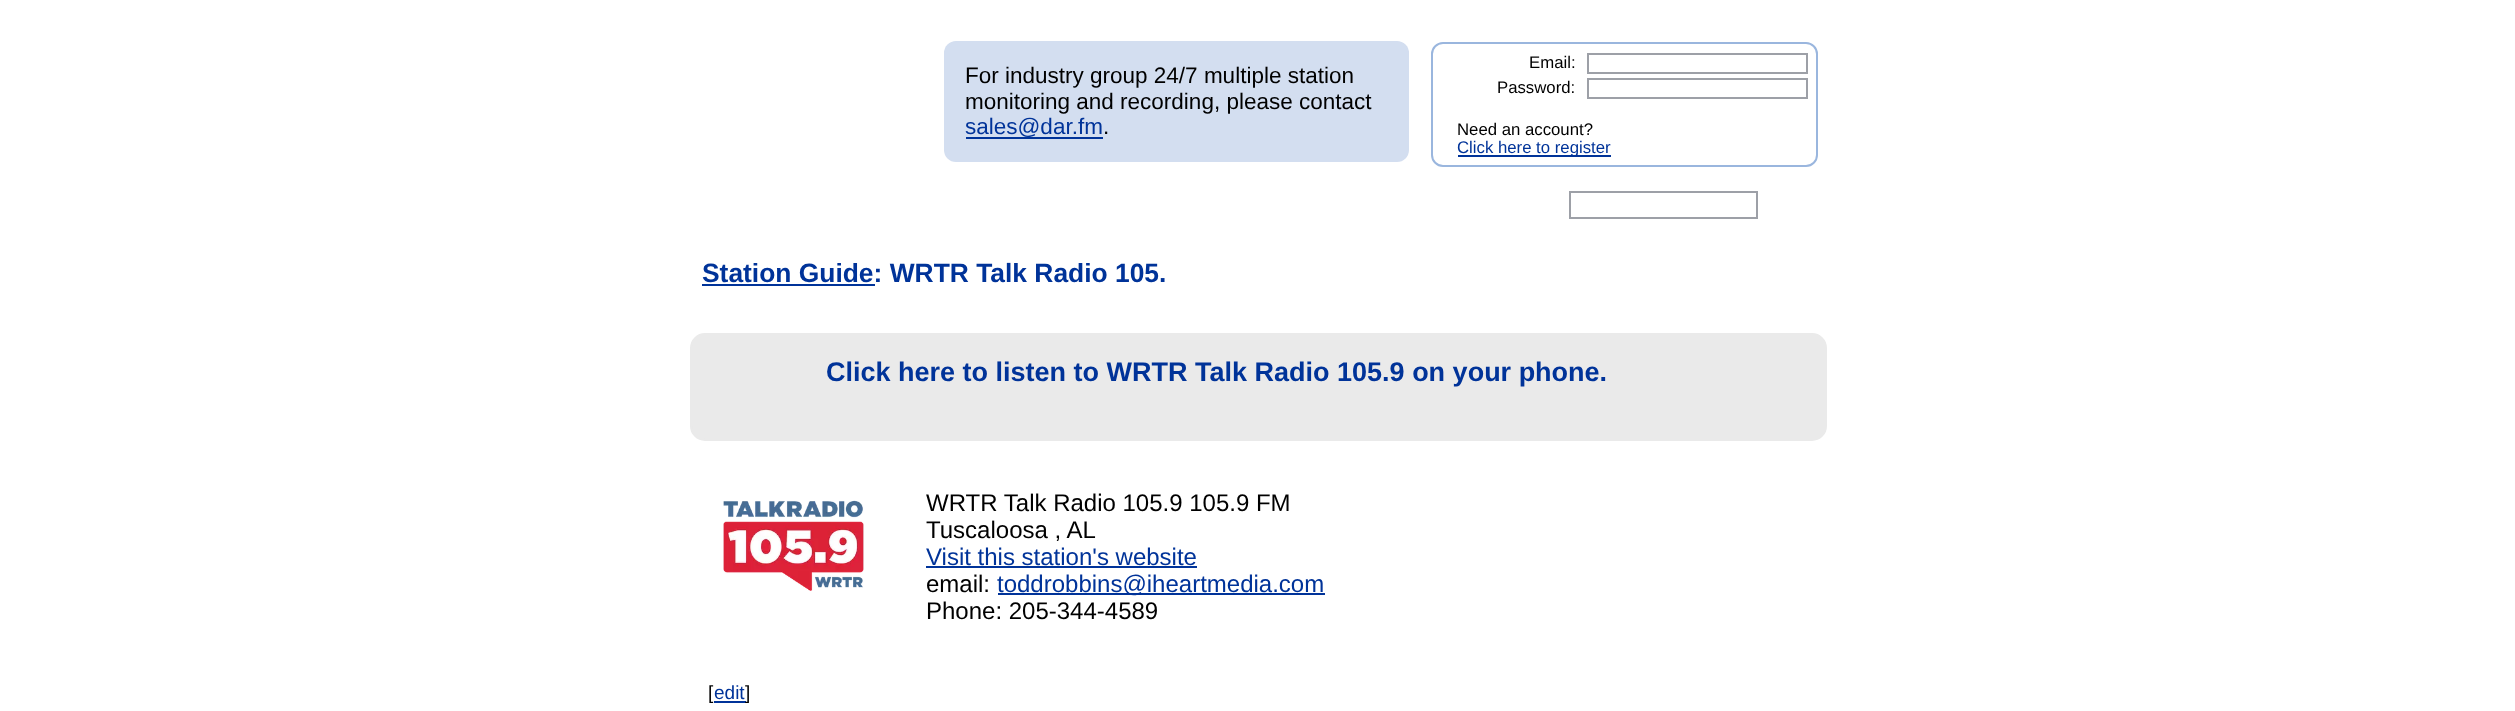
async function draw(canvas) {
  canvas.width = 2515
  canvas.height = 711
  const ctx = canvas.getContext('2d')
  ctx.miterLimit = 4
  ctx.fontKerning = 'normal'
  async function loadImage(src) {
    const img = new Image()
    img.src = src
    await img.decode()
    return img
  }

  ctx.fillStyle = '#fff'
  ctx.fillRect(0, 0, 2515, 711)
  ctx.fillStyle = '#d3def0'
  ctx.beginPath()
  ctx.roundRect(944, 41, 465, 121, 12)
  ctx.fill()
  ctx.font = '22.5px Liberation Sans'
  ctx.fillStyle = '#000'
  ctx.fillText('For industry group 24/7 multiple station', 965, 83)
  ctx.fillText('monitoring and recording, please contact', 965, 109)
  ctx.fillStyle = '#039'
  ctx.fillRect(966, 137, 137, 2)
  ctx.fillText('sales@dar.fm', 965, 134)
  ctx.fillStyle = '#000'
  ctx.fillText('.', 1103, 134)
  ctx.beginPath()
  ctx.roundRect(1432, 43, 385, 123, 11)
  ctx.strokeStyle = '#9ab6de'
  ctx.lineWidth = 2
  ctx.stroke()
  ctx.font = '16.75px Liberation Sans'
  ctx.fillText('Email:', 1529, 68)
  ctx.strokeStyle = '#9da0a7'
  ctx.strokeRect(1588, 54, 219, 19)
  ctx.fillText('Password:', 1497, 93)
  ctx.strokeRect(1588, 79, 219, 19)
  ctx.fillText('Need an account?', 1457, 135)
  ctx.fillStyle = '#039'
  ctx.fillRect(1458, 155, 153, 2)
  ctx.fillText('Click here to register', 1457, 153)
  ctx.strokeRect(1570, 192, 187, 26)
  ctx.font = 'bold 26.4px Liberation Sans'
  ctx.fillText('Station Guide: WRTR Talk Radio 105.', 702, 282)
  ctx.fillRect(702, 284, 173, 2)
  ctx.fillStyle = '#eaeaea'
  ctx.beginPath()
  ctx.roundRect(691, 334, 1135, 106, 14)
  ctx.fill()
  ctx.strokeStyle = '#eaeaea'
  ctx.stroke()
  ctx.font = 'bold 27px Liberation Sans'
  ctx.fillStyle = '#039'
  ctx.fillText('Click here to listen to WRTR Talk Radio 105.9 on your phone.', 826, 381)
  ctx.drawImage(await loadImage('image0.png'), 723, 500, 141, 91)
  ctx.font = '24px Liberation Sans'
  ctx.fillStyle = '#000'
  ctx.fillText('WRTR Talk Radio 105.9 105.9 FM', 926, 511)
  ctx.fillText('Tuscaloosa , AL', 926, 538)
  ctx.fillStyle = '#039'
  ctx.fillText('Visit this station\'s website', 926, 565)
  ctx.fillRect(926, 566, 271, 2)
  ctx.fillStyle = '#000'
  ctx.fillText('email:', 926, 592)
  ctx.fillStyle = '#039'
  ctx.fillRect(998, 593, 327, 2)
  ctx.fillText('toddrobbins@iheartmedia.com', 997, 592)
  ctx.fillStyle = '#000'
  ctx.fillText('Phone: 205-344-4589', 926, 619)
  ctx.font = '19px Liberation Sans'
  ctx.fillText('[', 708, 699)
  ctx.fillStyle = '#039'
  ctx.fillText('edit', 714, 699)
  ctx.fillRect(714, 701, 32, 2)
  ctx.fillStyle = '#000'
  ctx.fillText(']', 745, 699)
}

draw(document.querySelector('canvas'))
